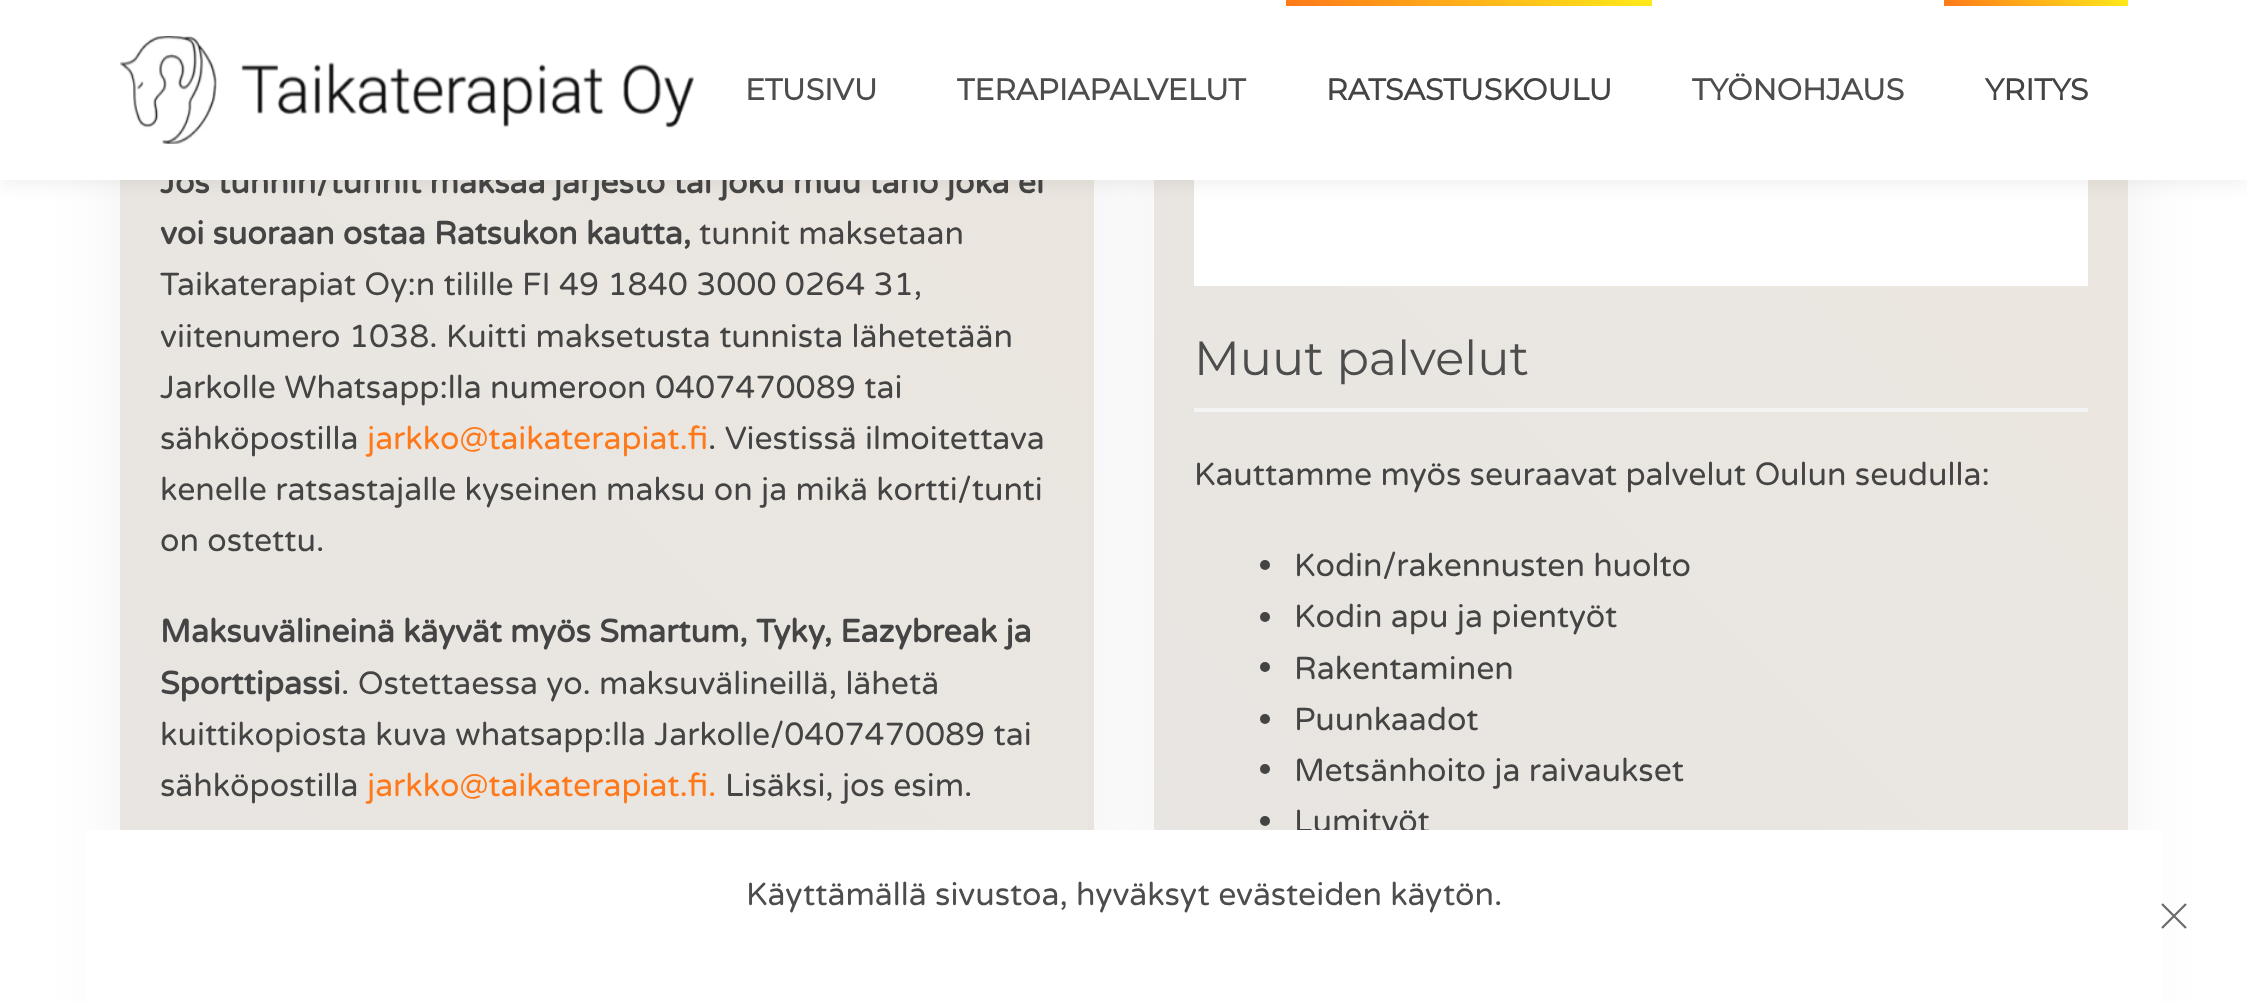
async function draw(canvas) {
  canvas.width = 2247
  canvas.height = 1002
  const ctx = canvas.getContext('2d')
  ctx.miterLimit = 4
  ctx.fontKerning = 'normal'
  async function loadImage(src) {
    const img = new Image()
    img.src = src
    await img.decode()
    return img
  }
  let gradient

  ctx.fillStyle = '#fff'
  ctx.fillRect(0, 0, 2247, 1002)
  ctx.fillStyle = '#0000000d'
  ctx.filter = 'blur(40px)'
  ctx.beginPath()
  ctx.rect(120, -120, 974, 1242)
  ctx.fill()
  ctx.filter = 'none'
  gradient = ctx.createLinearGradient(-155, 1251, 1369, -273)
  gradient.addColorStop(0, '#e7e5e3')
  gradient.addColorStop(1, '#ece6de')
  ctx.fillStyle = gradient
  ctx.fillRect(120, 180, 974, 650)
  ctx.fillStyle = '#0000000d'
  ctx.filter = 'blur(40px)'
  ctx.beginPath()
  ctx.rect(1154, -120, 974, 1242)
  ctx.fill()
  ctx.filter = 'none'
  gradient = ctx.createLinearGradient(972, 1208, 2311, -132)
  gradient.addColorStop(0, '#e7e5e3')
  gradient.addColorStop(1, '#ece6de')
  ctx.fillStyle = gradient
  ctx.fillRect(1154, 180, 974, 650)
  ctx.drawImage(await loadImage('image1.png'), 1194, 180, 894, 106)
  ctx.fillStyle = '#00000014'
  ctx.filter = 'blur(10px)'
  ctx.beginPath()
  ctx.rect(0, 2, 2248, 180)
  ctx.fill()
  ctx.filter = 'none'
  ctx.font = 'bold 32px Varela Round'
  ctx.fillStyle = '#444'
  ctx.fillText('Jos tunnin/tunnit maksaa järjestö tai joku muu taho joka ei', 160, 193)
  ctx.fillStyle = '#fff'
  ctx.fillRect(0, 0, 2247, 180)
  ctx.drawImage(await loadImage('image0.png'), 120, 36, 574, 108)
  ctx.font = 'bold 30px Montserrat'
  ctx.fillStyle = '#4d4d4d'
  ctx.fillText('ETUSIVU', 745, 100)
  ctx.fillText('TERAPIAPALVELUT', 957, 100)
  gradient = ctx.createLinearGradient(1376, 96, 1562, -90)
  gradient.addColorStop(0, '#ff7819')
  gradient.addColorStop(1, '#ffeb19')
  ctx.fillStyle = gradient
  ctx.fillRect(1286, 0, 366, 6)
  ctx.fillStyle = '#444'
  ctx.fillText('RATSASTUSKOULU', 1326, 100)
  ctx.fillStyle = '#4d4d4d'
  ctx.fillText('TYÖNOHJAUS', 1692, 100)
  gradient = ctx.createLinearGradient(1989, 51, 2084, -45)
  gradient.addColorStop(0, '#ff7819')
  gradient.addColorStop(1, '#ffeb19')
  ctx.fillStyle = gradient
  ctx.fillRect(1944, 0, 184, 6)
  ctx.fillStyle = '#444'
  ctx.fillText('YRITYS', 1985, 100)
  ctx.font = 'bold 32px Varela Round'
  ctx.fillText('voi suoraan ostaa Ratsukon kautta,', 160, 244)
  ctx.font = '32px Varela Round'
  ctx.fillText('tunnit maksetaan', 699, 244)
  ctx.fillText('Taikaterapiat Oy:n tilille FI 49 1840 3000 0264 31,', 160, 295)
  ctx.fillText('viitenumero 1038. Kuitti maksetusta tunnista lähetetään', 160, 347)
  ctx.fillText('Jarkolle Whatsapp:lla numeroon 0407470089 tai', 160, 398)
  ctx.fillText('sähköpostilla', 160, 449)
  ctx.fillStyle = '#ff7819'
  ctx.fillText('jarkko@taikaterapiat.fi', 367, 449)
  ctx.fillStyle = '#444'
  ctx.fillText('. Viestissä ilmoitettava', 708, 449)
  ctx.fillText('kenelle ratsastajalle kyseinen maksu on ja mikä kortti/tunti', 160, 500)
  ctx.fillText('on ostettu.', 160, 551)
  ctx.font = 'bold 32px Varela Round'
  ctx.fillText('Maksuvälineinä käyvät myös Smartum, Tyky, Eazybreak ja', 160, 642)
  ctx.fillText('Sporttipassi', 160, 694)
  ctx.font = '32px Varela Round'
  ctx.fillText('. Ostettaessa yo. maksuvälineillä, lähetä', 341, 694)
  ctx.fillText('kuittikopiosta kuva whatsapp:lla Jarkolle/0407470089 tai', 160, 745)
  ctx.fillText('sähköpostilla', 160, 796)
  ctx.fillStyle = '#ff7819'
  ctx.fillText('jarkko@taikaterapiat.fi.', 367, 796)
  ctx.fillStyle = '#444'
  ctx.fillText('Lisäksi, jos esim.', 725, 796)
  ctx.fillStyle = '#f4f4f4'
  ctx.fillRect(1194, 408, 894, 4)
  ctx.font = '100 48px Montserrat'
  ctx.fillStyle = '#4d4d4d'
  ctx.fillText('Muut palvelut', 1194, 375)
  ctx.font = '32px Varela Round'
  ctx.fillStyle = '#444'
  ctx.fillText('Kauttamme myös seuraavat palvelut Oulun seudulla:', 1194, 485)
  ctx.beginPath()
  ctx.arc(1265, 565, 5, 0, 2 * Math.PI)
  ctx.fill()
  ctx.fillText('Kodin/rakennusten huolto', 1294, 576)
  ctx.beginPath()
  ctx.arc(1265, 617, 5, 0, 2 * Math.PI)
  ctx.fill()
  ctx.fillText('Kodin apu ja pientyöt', 1294, 627)
  ctx.beginPath()
  ctx.arc(1265, 667, 5, 0, 2 * Math.PI)
  ctx.fill()
  ctx.fillText('Rakentaminen', 1294, 679)
  ctx.beginPath()
  ctx.arc(1265, 719, 5, 0, 2 * Math.PI)
  ctx.fill()
  ctx.fillText('Puunkaadot', 1294, 730)
  ctx.beginPath()
  ctx.arc(1265, 769, 5, 0, 2 * Math.PI)
  ctx.fill()
  ctx.fillText('Metsänhoito ja raivaukset', 1294, 781)
  ctx.beginPath()
  ctx.arc(1265, 821, 5, 0, 2 * Math.PI)
  ctx.fill()
  ctx.fillText('Lumityöt', 1294, 832)
  ctx.fillStyle = '#fff'
  ctx.fillRect(86, 830, 2076, 172)
  ctx.fillStyle = '#4d4d4d'
  ctx.fillText('Käyttämällä sivustoa, hyväksyt evästeiden käytön.', 746, 905)
  ctx.beginPath()
  ctx.moveTo(2162, 904)
  ctx.lineTo(2186, 928)
  ctx.moveTo(2186, 904)
  ctx.lineTo(2162, 928)
  ctx.strokeStyle = '#6a6a6a'
  ctx.lineWidth = 2.2
  ctx.stroke()
}

draw(document.querySelector('canvas'))
